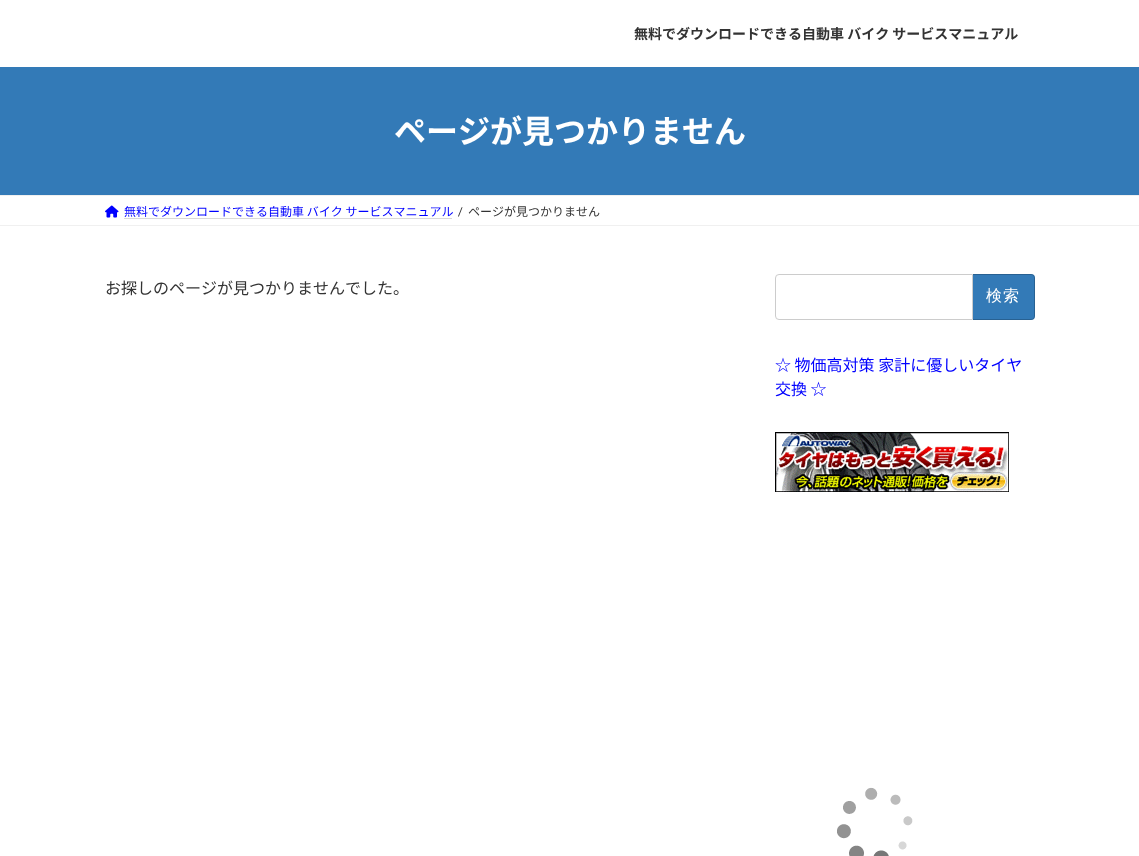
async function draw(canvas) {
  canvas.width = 1139
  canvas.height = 856
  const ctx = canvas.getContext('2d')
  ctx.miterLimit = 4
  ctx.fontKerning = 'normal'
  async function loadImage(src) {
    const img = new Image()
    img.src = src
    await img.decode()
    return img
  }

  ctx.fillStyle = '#fff'
  ctx.fillRect(0, 0, 1139, 856)
  ctx.font = 'bold 14px Noto Sans JP'
  ctx.fillStyle = '#333'
  ctx.fillText('無料でダウンロードできる自動車 バイク サービスマニュアル', 634, 39)
  ctx.fillStyle = '#337ab7'
  ctx.fillRect(0, 67, 1139, 128)
  ctx.font = 'bold 32px Noto Sans JP'
  ctx.fillStyle = '#fff'
  ctx.fillText('ページが見つかりません', 394, 143)
  ctx.fillStyle = '#f0f0f0'
  ctx.fillRect(0, 195, 1139, 1)
  ctx.fillRect(0, 225, 1139, 1)
  ctx.drawImage(await loadImage('image0.png'), 105, 205, 14, 13)
  ctx.font = '12px Noto Sans JP'
  ctx.fillStyle = '#00f'
  ctx.fillText('無料でダウンロードできる自動車 バイク サービスマニュアル', 124, 216)
  ctx.beginPath()
  ctx.moveTo(124.5, 218.5)
  ctx.lineTo(451.5, 218.5)
  ctx.strokeStyle = '#b3b3b3'
  ctx.setLineDash([1, 1])
  ctx.stroke()
  ctx.font = '12px Lato'
  ctx.fillStyle = '#333'
  ctx.fillText('/', 458, 216)
  ctx.font = '12px Noto Sans JP'
  ctx.fillText('ページが見つかりません', 468, 216)
  ctx.font = '16px Noto Sans JP'
  ctx.fillText('お探しのページが見つかりませんでした。', 105, 294)
  ctx.beginPath()
  ctx.roundRect(775.5, 274.5, 197, 45, [3.5, 0, 0, 3.5])
  ctx.strokeStyle = '#ccc'
  ctx.setLineDash([])
  ctx.stroke()
  ctx.fillStyle = '#337ab7'
  ctx.beginPath()
  ctx.roundRect(973, 274, 62, 46, [0, 4, 4, 0])
  ctx.fill()
  ctx.fillStyle = '#00000033'
  ctx.beginPath()
  ctx.moveTo(973, 274)
  ctx.lineTo(1031, 274)
  ctx.bezierCurveTo(1033, 274, 1035, 276, 1035, 278)
  ctx.lineTo(1035, 316)
  ctx.bezierCurveTo(1035, 318, 1033, 320, 1031, 320)
  ctx.lineTo(973, 320)
  ctx.closePath()
  ctx.moveTo(973, 275)
  ctx.lineTo(1031, 275)
  ctx.bezierCurveTo(1033, 275, 1034, 276, 1034, 278)
  ctx.lineTo(1034, 316)
  ctx.bezierCurveTo(1034, 318, 1033, 319, 1031, 319)
  ctx.lineTo(973, 319)
  ctx.closePath()
  ctx.fill('evenodd')
  ctx.letterSpacing = '1px'
  ctx.font = '500 16px WenQuanYi Zen Hei'
  ctx.fillStyle = '#fff'
  ctx.fillText('検索', 986, 301)
  ctx.letterSpacing = '0px'
  ctx.font = '16px Noto Sans JP'
  ctx.fillStyle = '#00f'
  ctx.fillText('☆ 物価高対策 家計に優しいタイヤ', 775, 371)
  ctx.fillText('交換 ☆', 775, 395)
  ctx.drawImage(await loadImage('image1.png'), 775, 432, 234, 60)
  ctx.drawImage(await loadImage('image2.png'), 837, 787, 76, 69)
}

draw(document.querySelector('canvas'))
